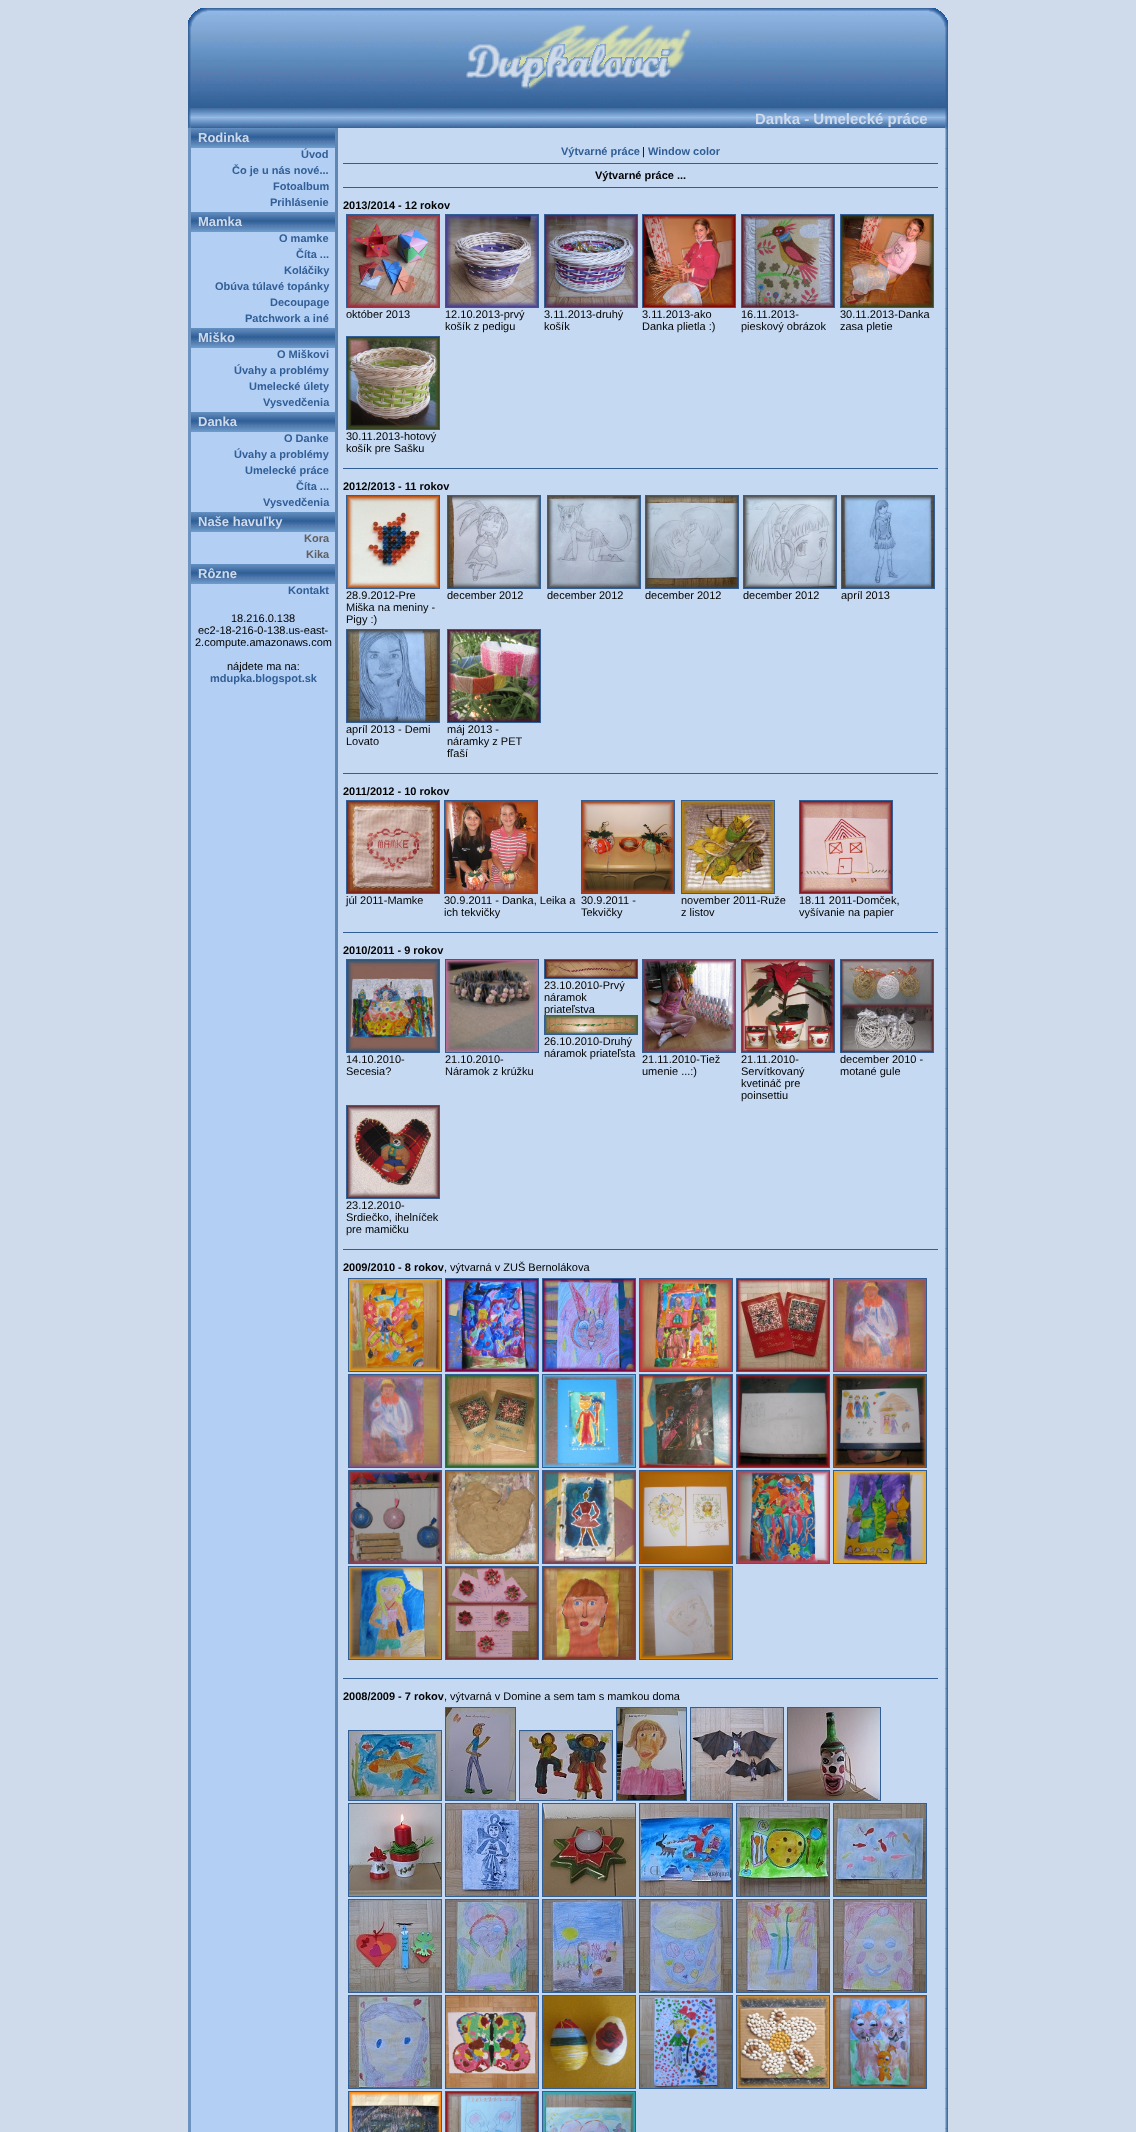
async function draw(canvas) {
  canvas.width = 1136
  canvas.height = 2132
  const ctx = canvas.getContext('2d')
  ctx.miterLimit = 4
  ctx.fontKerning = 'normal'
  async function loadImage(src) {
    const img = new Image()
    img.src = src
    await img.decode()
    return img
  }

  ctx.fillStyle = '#cfdaeb'
  ctx.fillRect(0, 0, 1136, 2132)
  ctx.drawImage(await loadImage('image0.png'), 188, 8, 150, 100)
  ctx.drawImage(await loadImage('image1.png'), 338, 8, 460, 100)
  ctx.drawImage(await loadImage('image2.png'), 798, 8, 150, 100)
  ctx.drawImage(await loadImage('image3.png'), 188, 108, 150, 20)
  ctx.drawImage(await loadImage('image4.png'), 338, 108, 590, 20)
  ctx.font = 'bold 15px Liberation Sans'
  ctx.fillText('Danka - Umelecké práce', 755, 124)
  ctx.drawImage(await loadImage('image5.png'), 928, 108, 20, 20)
  ctx.fillStyle = '#6c92c0'
  ctx.fillRect(188, 128, 3, 2004)
  ctx.fillStyle = '#b3cff4'
  ctx.fillRect(191, 148, 144, 1984)
  ctx.drawImage(await loadImage('image6.png'), 191, 128, 144, 20)
  ctx.font = 'bold 13px Liberation Sans'
  ctx.fillStyle = '#cfdaeb'
  ctx.fillText('Rodinka', 198, 142)
  ctx.font = 'bold 11px Liberation Sans'
  ctx.fillStyle = '#315e95'
  ctx.fillText('Úvod', 301, 158)
  ctx.fillText('Čo je u nás nové...', 232, 174)
  ctx.fillText('Fotoalbum', 273, 190)
  ctx.fillText('Prihlásenie', 270, 206)
  ctx.drawImage(await loadImage('image6.png'), 191, 212, 144, 20)
  ctx.font = 'bold 13px Liberation Sans'
  ctx.fillStyle = '#cfdaeb'
  ctx.fillText('Mamka', 198, 226)
  ctx.font = 'bold 11px Liberation Sans'
  ctx.fillStyle = '#315e95'
  ctx.fillText('O mamke', 279, 242)
  ctx.fillText('Číta ...', 296, 258)
  ctx.fillText('Koláčiky', 284, 274)
  ctx.fillText('Obúva túlavé topánky', 215, 290)
  ctx.fillText('Decoupage', 270, 306)
  ctx.fillText('Patchwork a iné', 245, 322)
  ctx.drawImage(await loadImage('image6.png'), 191, 328, 144, 20)
  ctx.font = 'bold 13px Liberation Sans'
  ctx.fillStyle = '#cfdaeb'
  ctx.fillText('Miško', 198, 342)
  ctx.font = 'bold 11px Liberation Sans'
  ctx.fillStyle = '#315e95'
  ctx.fillText('O Miškovi', 277, 358)
  ctx.fillText('Úvahy a problémy', 234, 374)
  ctx.fillText('Umelecké úlety', 249, 390)
  ctx.fillText('Vysvedčenia', 263, 406)
  ctx.drawImage(await loadImage('image6.png'), 191, 412, 144, 20)
  ctx.font = 'bold 13px Liberation Sans'
  ctx.fillStyle = '#cfdaeb'
  ctx.fillText('Danka', 198, 426)
  ctx.font = 'bold 11px Liberation Sans'
  ctx.fillStyle = '#315e95'
  ctx.fillText('O Danke', 284, 442)
  ctx.fillText('Úvahy a problémy', 234, 458)
  ctx.fillText('Umelecké práce', 245, 474)
  ctx.fillText('Číta ...', 296, 490)
  ctx.fillText('Vysvedčenia', 263, 506)
  ctx.drawImage(await loadImage('image6.png'), 191, 512, 144, 20)
  ctx.font = 'bold 13px Liberation Sans'
  ctx.fillStyle = '#cfdaeb'
  ctx.fillText('Naše havuľky', 198, 526)
  ctx.font = 'bold 11px Liberation Sans'
  ctx.fillStyle = '#606060'
  ctx.fillText('Kora', 304, 542)
  ctx.fillText('Kika', 306, 558)
  ctx.drawImage(await loadImage('image6.png'), 191, 564, 144, 20)
  ctx.font = 'bold 13px Liberation Sans'
  ctx.fillStyle = '#cfdaeb'
  ctx.fillText('Rôzne', 198, 578)
  ctx.font = 'bold 11px Liberation Sans'
  ctx.fillStyle = '#315e95'
  ctx.fillText('Kontakt', 288, 594)
  ctx.font = '11px Liberation Sans'
  ctx.fillStyle = '#000'
  ctx.fillText('18.216.0.138', 231, 622)
  ctx.fillText('ec2-18-216-0-138.us-east-', 198, 634)
  ctx.fillText('2.compute.amazonaws.com', 195, 646)
  ctx.fillText('nájdete ma na:', 227, 670)
  ctx.font = 'bold 11px Liberation Sans'
  ctx.fillStyle = '#315e95'
  ctx.fillText('mdupka.blogspot.sk', 210, 682)
  ctx.fillStyle = '#6087b4'
  ctx.fillRect(335, 128, 3, 2004)
  ctx.fillStyle = '#c5d9f2'
  ctx.fillRect(338, 128, 605, 2004)
  ctx.fillStyle = '#315e95'
  ctx.fillText('Výtvarné práce', 561, 155)
  ctx.font = '11px Liberation Sans'
  ctx.fillStyle = '#000'
  ctx.fillText('|', 642, 155)
  ctx.font = 'bold 11px Liberation Sans'
  ctx.fillStyle = '#315e95'
  ctx.fillText('Window color', 648, 155)
  ctx.fillRect(343, 163, 595, 1)
  ctx.fillStyle = '#000'
  ctx.fillText('Výtvarné práce ...', 595, 179)
  ctx.fillStyle = '#315e95'
  ctx.fillRect(343, 187, 595, 1)
  ctx.fillStyle = '#000'
  ctx.fillText('2013/2014 - 12 rokov', 343, 209)
  ctx.strokeStyle = '#315e95'
  ctx.strokeRect(346.5, 214.5, 93, 93)
  ctx.drawImage(await loadImage('image7.png'), 347, 215, 92, 92)
  ctx.font = '11px Liberation Sans'
  ctx.fillText('október 2013', 346, 318)
  ctx.strokeRect(445.5, 214.5, 93, 93)
  ctx.drawImage(await loadImage('image8.png'), 446, 215, 92, 92)
  ctx.fillText('12.10.2013-prvý', 445, 318)
  ctx.fillText('košík z pedigu', 445, 330)
  ctx.strokeRect(544.5, 214.5, 93, 93)
  ctx.drawImage(await loadImage('image9.png'), 545, 215, 92, 92)
  ctx.fillText('3.11.2013-druhý', 544, 318)
  ctx.fillText('košík', 544, 330)
  ctx.strokeRect(642.5, 214.5, 93, 93)
  ctx.drawImage(await loadImage('image10.png'), 643, 215, 92, 92)
  ctx.fillText('3.11.2013-ako', 642, 318)
  ctx.fillText('Danka plietla :)', 642, 330)
  ctx.strokeRect(741.5, 214.5, 93, 93)
  ctx.drawImage(await loadImage('image11.png'), 742, 215, 92, 92)
  ctx.fillText('16.11.2013-', 741, 318)
  ctx.fillText('pieskový obrázok', 741, 330)
  ctx.strokeRect(840.5, 214.5, 93, 93)
  ctx.drawImage(await loadImage('image12.png'), 841, 215, 92, 92)
  ctx.fillText('30.11.2013-Danka', 840, 318)
  ctx.fillText('zasa pletie', 840, 330)
  ctx.strokeRect(346.5, 336.5, 93, 93)
  ctx.drawImage(await loadImage('image13.png'), 347, 337, 92, 92)
  ctx.fillText('30.11.2013-hotový', 346, 440)
  ctx.fillText('košík pre Sašku', 346, 452)
  ctx.fillStyle = '#315e95'
  ctx.fillRect(343, 468, 595, 1)
  ctx.font = 'bold 11px Liberation Sans'
  ctx.fillStyle = '#000'
  ctx.fillText('2012/2013 - 11 rokov', 343, 490)
  ctx.strokeRect(346.5, 495.5, 93, 93)
  ctx.drawImage(await loadImage('image14.png'), 347, 496, 92, 92)
  ctx.font = '11px Liberation Sans'
  ctx.fillText('28.9.2012-Pre', 346, 599)
  ctx.fillText('Miška na meniny -', 346, 611)
  ctx.fillText('Pigy :)', 346, 623)
  ctx.strokeRect(447.5, 495.5, 93, 93)
  ctx.drawImage(await loadImage('image15.png'), 448, 496, 92, 92)
  ctx.fillText('december 2012', 447, 599)
  ctx.strokeRect(547.5, 495.5, 93, 93)
  ctx.drawImage(await loadImage('image16.png'), 548, 496, 92, 92)
  ctx.fillText('december 2012', 547, 599)
  ctx.strokeRect(645.5, 495.5, 93, 93)
  ctx.drawImage(await loadImage('image17.png'), 646, 496, 92, 92)
  ctx.fillText('december 2012', 645, 599)
  ctx.strokeRect(743.5, 495.5, 93, 93)
  ctx.drawImage(await loadImage('image18.png'), 744, 496, 92, 92)
  ctx.fillText('december 2012', 743, 599)
  ctx.strokeRect(841.5, 495.5, 93, 93)
  ctx.drawImage(await loadImage('image19.png'), 842, 496, 92, 92)
  ctx.fillText('apríl 2013', 841, 599)
  ctx.strokeRect(346.5, 629.5, 93, 93)
  ctx.drawImage(await loadImage('image20.png'), 347, 630, 92, 92)
  ctx.fillText('apríl 2013 - Demi', 346, 733)
  ctx.fillText('Lovato', 346, 745)
  ctx.strokeRect(447.5, 629.5, 93, 93)
  ctx.drawImage(await loadImage('image21.png'), 448, 630, 92, 92)
  ctx.fillText('máj 2013 -', 447, 733)
  ctx.fillText('náramky z PET', 447, 745)
  ctx.fillText('fľaší', 447, 757)
  ctx.fillStyle = '#315e95'
  ctx.fillRect(343, 773, 595, 1)
  ctx.font = 'bold 11px Liberation Sans'
  ctx.fillStyle = '#000'
  ctx.fillText('2011/2012 - 10 rokov', 343, 795)
  ctx.strokeRect(346.5, 800.5, 93, 93)
  ctx.drawImage(await loadImage('image22.png'), 347, 801, 92, 92)
  ctx.font = '11px Liberation Sans'
  ctx.fillText('júl 2011-Mamke', 346, 904)
  ctx.strokeRect(444.5, 800.5, 93, 93)
  ctx.drawImage(await loadImage('image23.png'), 445, 801, 92, 92)
  ctx.fillText('30.9.2011 - Danka, Leika a', 444, 904)
  ctx.fillText('ich tekvičky', 444, 916)
  ctx.strokeRect(581.5, 800.5, 93, 93)
  ctx.drawImage(await loadImage('image24.png'), 582, 801, 92, 92)
  ctx.fillText('30.9.2011 -', 581, 904)
  ctx.fillText('Tekvičky', 581, 916)
  ctx.strokeRect(681.5, 800.5, 93, 93)
  ctx.drawImage(await loadImage('image25.png'), 682, 801, 92, 92)
  ctx.fillText('november 2011-Ruže', 681, 904)
  ctx.fillText('z listov', 681, 916)
  ctx.strokeRect(799.5, 800.5, 93, 93)
  ctx.drawImage(await loadImage('image26.png'), 800, 801, 92, 92)
  ctx.fillText('18.11 2011-Domček,', 799, 904)
  ctx.fillText('vyšívanie na papier', 799, 916)
  ctx.fillStyle = '#315e95'
  ctx.fillRect(343, 932, 595, 1)
  ctx.font = 'bold 11px Liberation Sans'
  ctx.fillStyle = '#000'
  ctx.fillText('2010/2011 - 9 rokov', 343, 954)
  ctx.strokeRect(544.5, 959.5, 93, 19)
  ctx.drawImage(await loadImage('image27.png'), 545, 960, 92, 18)
  ctx.font = '11px Liberation Sans'
  ctx.fillText('23.10.2010-Prvý', 544, 989)
  ctx.fillText('náramok', 544, 1001)
  ctx.fillText('priateľstva', 544, 1013)
  ctx.strokeRect(544.5, 1015.5, 93, 19)
  ctx.drawImage(await loadImage('image28.png'), 545, 1016, 92, 18)
  ctx.fillText('26.10.2010-Druhý', 544, 1045)
  ctx.fillText('náramok priateľsta', 544, 1057)
  ctx.strokeRect(346.5, 959.5, 93, 93)
  ctx.drawImage(await loadImage('image29.png'), 347, 960, 92, 92)
  ctx.fillText('14.10.2010-', 346, 1063)
  ctx.fillText('Secesia?', 346, 1075)
  ctx.strokeRect(445.5, 959.5, 93, 93)
  ctx.drawImage(await loadImage('image30.png'), 446, 960, 92, 92)
  ctx.fillText('21.10.2010-', 445, 1063)
  ctx.fillText('Náramok z krúžku', 445, 1075)
  ctx.strokeRect(642.5, 959.5, 93, 93)
  ctx.drawImage(await loadImage('image31.png'), 643, 960, 92, 92)
  ctx.fillText('21.11.2010-Tiež', 642, 1063)
  ctx.fillText('umenie ...:)', 642, 1075)
  ctx.strokeRect(741.5, 959.5, 93, 93)
  ctx.drawImage(await loadImage('image32.png'), 742, 960, 92, 92)
  ctx.fillText('21.11.2010-', 741, 1063)
  ctx.fillText('Servítkovaný', 741, 1075)
  ctx.fillText('kvetináč pre', 741, 1087)
  ctx.fillText('poinsettiu', 741, 1099)
  ctx.strokeRect(840.5, 959.5, 93, 93)
  ctx.drawImage(await loadImage('image33.png'), 841, 960, 92, 92)
  ctx.fillText('december 2010 -', 840, 1063)
  ctx.fillText('motané gule', 840, 1075)
  ctx.strokeRect(346.5, 1105.5, 93, 93)
  ctx.drawImage(await loadImage('image34.png'), 347, 1106, 92, 92)
  ctx.fillText('23.12.2010-', 346, 1209)
  ctx.fillText('Srdiečko, ihelníček', 346, 1221)
  ctx.fillText('pre mamičku', 346, 1233)
  ctx.fillStyle = '#315e95'
  ctx.fillRect(343, 1249, 595, 1)
  ctx.font = 'bold 11px Liberation Sans'
  ctx.fillStyle = '#000'
  ctx.fillText('2009/2010 - 8 rokov', 343, 1271)
  ctx.font = '11px Liberation Sans'
  ctx.fillText(', výtvarná v ZUŠ Bernolákova', 444, 1271)
  ctx.strokeRect(348.5, 1278.5, 93, 93)
  ctx.strokeRect(445.5, 1278.5, 93, 93)
  ctx.strokeRect(542.5, 1278.5, 93, 93)
  ctx.strokeRect(639.5, 1278.5, 93, 93)
  ctx.strokeRect(736.5, 1278.5, 93, 93)
  ctx.strokeRect(833.5, 1278.5, 93, 93)
  ctx.drawImage(await loadImage('image35.png'), 349, 1279, 92, 92)
  ctx.drawImage(await loadImage('image36.png'), 446, 1279, 92, 92)
  ctx.drawImage(await loadImage('image37.png'), 543, 1279, 92, 92)
  ctx.drawImage(await loadImage('image38.png'), 640, 1279, 92, 92)
  ctx.drawImage(await loadImage('image39.png'), 737, 1279, 92, 92)
  ctx.drawImage(await loadImage('image40.png'), 834, 1279, 92, 92)
  ctx.strokeRect(348.5, 1374.5, 93, 93)
  ctx.strokeRect(445.5, 1374.5, 93, 93)
  ctx.strokeRect(542.5, 1374.5, 93, 93)
  ctx.strokeRect(639.5, 1374.5, 93, 93)
  ctx.strokeRect(736.5, 1374.5, 93, 93)
  ctx.strokeRect(833.5, 1374.5, 93, 93)
  ctx.drawImage(await loadImage('image41.png'), 349, 1375, 92, 92)
  ctx.drawImage(await loadImage('image42.png'), 446, 1375, 92, 92)
  ctx.drawImage(await loadImage('image43.png'), 543, 1375, 92, 92)
  ctx.drawImage(await loadImage('image44.png'), 640, 1375, 92, 92)
  ctx.drawImage(await loadImage('image45.png'), 737, 1375, 92, 92)
  ctx.drawImage(await loadImage('image46.png'), 834, 1375, 92, 92)
  ctx.strokeRect(348.5, 1470.5, 93, 93)
  ctx.strokeRect(445.5, 1470.5, 93, 93)
  ctx.strokeRect(542.5, 1470.5, 93, 93)
  ctx.strokeRect(639.5, 1470.5, 93, 93)
  ctx.strokeRect(736.5, 1470.5, 93, 93)
  ctx.strokeRect(833.5, 1470.5, 93, 93)
  ctx.drawImage(await loadImage('image47.png'), 349, 1471, 92, 92)
  ctx.drawImage(await loadImage('image48.png'), 446, 1471, 92, 92)
  ctx.drawImage(await loadImage('image49.png'), 543, 1471, 92, 92)
  ctx.drawImage(await loadImage('image50.png'), 640, 1471, 92, 92)
  ctx.drawImage(await loadImage('image51.png'), 737, 1471, 92, 92)
  ctx.drawImage(await loadImage('image52.png'), 834, 1471, 92, 92)
  ctx.strokeRect(348.5, 1566.5, 93, 93)
  ctx.strokeRect(445.5, 1566.5, 93, 93)
  ctx.strokeRect(542.5, 1566.5, 93, 93)
  ctx.strokeRect(639.5, 1566.5, 93, 93)
  ctx.drawImage(await loadImage('image53.png'), 349, 1567, 92, 92)
  ctx.drawImage(await loadImage('image54.png'), 446, 1567, 92, 92)
  ctx.drawImage(await loadImage('image55.png'), 543, 1567, 92, 92)
  ctx.drawImage(await loadImage('image56.png'), 640, 1567, 92, 92)
  ctx.fillStyle = '#315e95'
  ctx.fillRect(343, 1678, 595, 1)
  ctx.font = 'bold 11px Liberation Sans'
  ctx.fillStyle = '#000'
  ctx.fillText('2008/2009 - 7 rokov', 343, 1700)
  ctx.font = '11px Liberation Sans'
  ctx.fillText(', výtvarná v Domine a sem tam s mamkou doma', 444, 1700)
  ctx.strokeRect(445.5, 1707.5, 70, 93)
  ctx.strokeRect(616.5, 1707.5, 70, 93)
  ctx.strokeRect(690.5, 1707.5, 93, 93)
  ctx.strokeRect(787.5, 1707.5, 93, 93)
  ctx.strokeRect(348.5, 1730.5, 93, 70)
  ctx.drawImage(await loadImage('image57.png'), 446, 1708, 69, 92)
  ctx.strokeRect(519.5, 1730.5, 93, 70)
  ctx.drawImage(await loadImage('image58.png'), 617, 1708, 69, 92)
  ctx.drawImage(await loadImage('image59.png'), 691, 1708, 92, 92)
  ctx.drawImage(await loadImage('image60.png'), 788, 1708, 92, 92)
  ctx.drawImage(await loadImage('image61.png'), 349, 1731, 92, 69)
  ctx.drawImage(await loadImage('image62.png'), 520, 1731, 92, 69)
  ctx.strokeRect(348.5, 1803.5, 93, 93)
  ctx.strokeRect(445.5, 1803.5, 93, 93)
  ctx.strokeRect(542.5, 1803.5, 93, 93)
  ctx.strokeRect(639.5, 1803.5, 93, 93)
  ctx.strokeRect(736.5, 1803.5, 93, 93)
  ctx.strokeRect(833.5, 1803.5, 93, 93)
  ctx.drawImage(await loadImage('image63.png'), 349, 1804, 92, 92)
  ctx.drawImage(await loadImage('image64.png'), 446, 1804, 92, 92)
  ctx.drawImage(await loadImage('image65.png'), 543, 1804, 92, 92)
  ctx.drawImage(await loadImage('image66.png'), 640, 1804, 92, 92)
  ctx.drawImage(await loadImage('image67.png'), 737, 1804, 92, 92)
  ctx.drawImage(await loadImage('image68.png'), 834, 1804, 92, 92)
  ctx.strokeRect(348.5, 1899.5, 93, 93)
  ctx.strokeRect(445.5, 1899.5, 93, 93)
  ctx.strokeRect(542.5, 1899.5, 93, 93)
  ctx.strokeRect(639.5, 1899.5, 93, 93)
  ctx.strokeRect(736.5, 1899.5, 93, 93)
  ctx.strokeRect(833.5, 1899.5, 93, 93)
  ctx.drawImage(await loadImage('image69.png'), 349, 1900, 92, 92)
  ctx.drawImage(await loadImage('image70.png'), 446, 1900, 92, 92)
  ctx.drawImage(await loadImage('image71.png'), 543, 1900, 92, 92)
  ctx.drawImage(await loadImage('image72.png'), 640, 1900, 92, 92)
  ctx.drawImage(await loadImage('image73.png'), 737, 1900, 92, 92)
  ctx.drawImage(await loadImage('image74.png'), 834, 1900, 92, 92)
  ctx.strokeRect(348.5, 1995.5, 93, 93)
  ctx.strokeRect(445.5, 1995.5, 93, 93)
  ctx.strokeRect(542.5, 1995.5, 93, 93)
  ctx.strokeRect(639.5, 1995.5, 93, 93)
  ctx.strokeRect(736.5, 1995.5, 93, 93)
  ctx.strokeRect(833.5, 1995.5, 93, 93)
  ctx.drawImage(await loadImage('image75.png'), 349, 1996, 92, 92)
  ctx.drawImage(await loadImage('image76.png'), 446, 1996, 92, 92)
  ctx.drawImage(await loadImage('image77.png'), 543, 1996, 92, 92)
  ctx.drawImage(await loadImage('image78.png'), 640, 1996, 92, 92)
  ctx.drawImage(await loadImage('image79.png'), 737, 1996, 92, 92)
  ctx.drawImage(await loadImage('image80.png'), 834, 1996, 92, 92)
  ctx.strokeRect(348.5, 2091.5, 93, 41)
  ctx.strokeRect(445.5, 2091.5, 93, 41)
  ctx.strokeRect(542.5, 2091.5, 93, 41)
  ctx.drawImage(await loadImage('image81.png'), 349, 2092, 92, 40)
  ctx.drawImage(await loadImage('image82.png'), 446, 2092, 92, 40)
  ctx.drawImage(await loadImage('image83.png'), 543, 2092, 92, 40)
  ctx.drawImage(await loadImage('image84.png'), 943, 128, 5, 2004)
}

draw(document.querySelector('canvas'))
